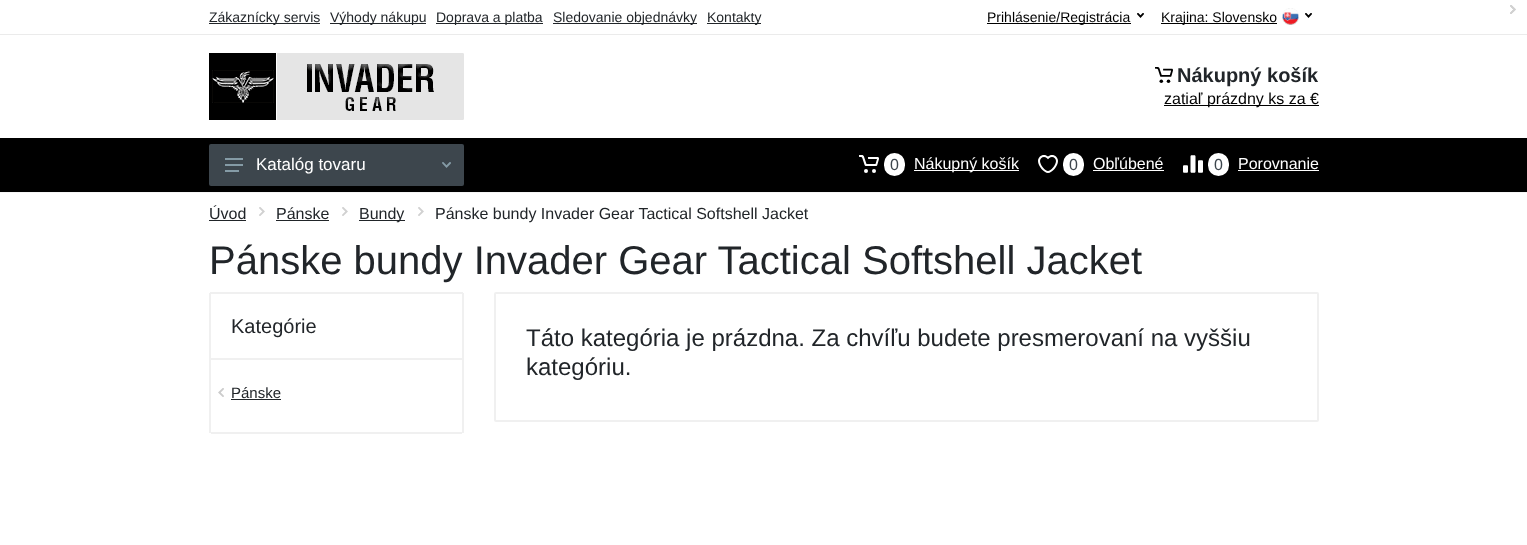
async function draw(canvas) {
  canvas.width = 1527
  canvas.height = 545
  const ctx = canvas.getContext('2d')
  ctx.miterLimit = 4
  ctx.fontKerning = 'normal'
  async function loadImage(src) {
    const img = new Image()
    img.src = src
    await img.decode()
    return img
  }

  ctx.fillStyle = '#fff'
  ctx.fillRect(0, 0, 1527, 545)
  ctx.drawImage(await loadImage('image9.png'), 1510, 5, 6, 9)
  ctx.drawImage(await loadImage('image10.png'), 1510, 5, 6, 9)
  ctx.strokeStyle = '#ebebeb'
  ctx.strokeRect(-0.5, -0.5, 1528, 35)
  ctx.fillStyle = '#212529'
  ctx.fillRect(209, 23, 111, 1)
  ctx.font = '14px Liberation Sans'
  ctx.fillText('Zákaznícky servis', 209, 22)
  ctx.fillRect(330, 23, 96, 1)
  ctx.fillText('Výhody nákupu', 330, 22)
  ctx.fillRect(436, 23, 107, 1)
  ctx.fillText('Doprava a platba', 436, 22)
  ctx.fillRect(553, 23, 144, 1)
  ctx.fillText('Sledovanie objednávky', 553, 22)
  ctx.fillRect(707, 23, 54, 1)
  ctx.fillText('Kontakty', 707, 22)
  ctx.fillStyle = '#000'
  ctx.fillRect(987, 23, 144, 1)
  ctx.fillText('Prihlásenie/Registrácia', 987, 22)
  ctx.drawImage(await loadImage('image0.png'), 1137, 13, 7, 5)
  ctx.fillRect(1161, 23, 116, 1)
  ctx.fillText('Krajina: Slovensko', 1161, 22)
  ctx.drawImage(await loadImage('image1.png'), 1282, 8, 17, 17)
  ctx.drawImage(await loadImage('image0.png'), 1305, 13, 7, 5)
  ctx.drawImage(await loadImage('image2.png'), 209, 53, 255, 67)
  ctx.drawImage(await loadImage('image3.png'), 1155, 67, 18, 16)
  ctx.font = 'bold 20px Liberation Sans'
  ctx.fillStyle = '#212529'
  ctx.fillText('Nákupný košík', 1177, 82)
  ctx.fillStyle = '#000'
  ctx.fillRect(1164, 105, 99, 1)
  ctx.font = '16px Liberation Sans'
  ctx.fillText('zatiaľ prázdny ks za €', 1164, 104)
  ctx.fillRect(1263, 105, 56, 1)
  ctx.fillStyle = '#f5f5f5'
  ctx.fillRect(0, 192, 1527, 1)
  ctx.fillStyle = '#000'
  ctx.fillRect(0, 138, 1527, 54)
  ctx.fillStyle = '#3d464d'
  ctx.beginPath()
  ctx.roundRect(209, 144, 255, 42, 2)
  ctx.fill()
  ctx.drawImage(await loadImage('image4.png'), 225, 158, 18, 14)
  ctx.font = '17px Liberation Sans'
  ctx.fillStyle = '#fff'
  ctx.fillText('Katalóg tovaru', 256, 170)
  ctx.drawImage(await loadImage('image5.png'), 442, 162, 9, 6)
  ctx.drawImage(await loadImage('image6.png'), 859, 155, 20, 18)
  ctx.beginPath()
  ctx.roundRect(884, 153, 21, 23, 10.5)
  ctx.fill()
  ctx.font = '16px Liberation Sans'
  ctx.fillStyle = '#3d464d'
  ctx.fillText('0', 890, 170)
  ctx.fillStyle = '#fff'
  ctx.fillRect(914, 170, 105, 1)
  ctx.fillText('Nákupný košík', 914, 169)
  ctx.drawImage(await loadImage('image7.png'), 1038, 155, 20, 18)
  ctx.beginPath()
  ctx.roundRect(1063, 153, 21, 23, 10.5)
  ctx.fill()
  ctx.fillStyle = '#3d464d'
  ctx.fillText('0', 1069, 170)
  ctx.fillStyle = '#fff'
  ctx.fillText('Obľúbené', 1093, 169)
  ctx.fillRect(1093, 170, 71, 1)
  ctx.drawImage(await loadImage('image8.png'), 1183, 155, 20, 18)
  ctx.beginPath()
  ctx.roundRect(1208, 153, 21, 23, 10.5)
  ctx.fill()
  ctx.fillStyle = '#3d464d'
  ctx.fillText('0', 1214, 170)
  ctx.fillStyle = '#fff'
  ctx.fillText('Porovnanie', 1238, 169)
  ctx.fillRect(1238, 170, 81, 1)
  ctx.fillStyle = '#212529'
  ctx.fillText('Úvod', 209, 219)
  ctx.fillRect(209, 220, 37, 1)
  ctx.drawImage(await loadImage('image9.png'), 259, 207, 6, 9)
  ctx.fillText('Pánske', 276, 219)
  ctx.fillRect(276, 220, 53, 1)
  ctx.drawImage(await loadImage('image9.png'), 342, 207, 6, 9)
  ctx.fillRect(359, 220, 46, 1)
  ctx.fillText('Bundy', 359, 219)
  ctx.drawImage(await loadImage('image9.png'), 418, 207, 6, 9)
  ctx.fillText('Pánske bundy Invader Gear Tactical Softshell Jacket', 435, 219)
  ctx.font = '40px Liberation Sans'
  ctx.fillText('Pánske bundy Invader Gear Tactical Softshell Jacket', 209, 274)
  ctx.fillStyle = '#f0f0f0'
  ctx.fillRect(210, 292, 253, 2)
  ctx.fillRect(462, 293, 2, 140)
  ctx.fillRect(209, 293, 2, 140)
  ctx.font = '20px Liberation Sans'
  ctx.fillStyle = '#212529'
  ctx.fillText('Kategórie', 231, 333)
  ctx.fillStyle = '#f0f0f0'
  ctx.fillRect(211, 358, 251, 2)
  ctx.fillRect(211, 432, 251, 2)
  ctx.drawImage(await loadImage('image11.png'), 218, 388, 6, 9)
  ctx.font = '15px Liberation Sans'
  ctx.fillStyle = '#212529'
  ctx.fillText('Pánske', 231, 398)
  ctx.fillRect(231, 399, 50, 1)
  ctx.beginPath()
  ctx.roundRect(495, 293, 823, 128, 1)
  ctx.strokeStyle = '#f0f0f0'
  ctx.lineWidth = 2
  ctx.stroke()
  ctx.font = '24px Liberation Sans'
  ctx.fillText('Táto kategória je prázdna. Za chvíľu budete presmerovaní na vyššiu', 526, 346)
  ctx.fillText('kategóriu.', 526, 375)
}

draw(document.querySelector('canvas'))
